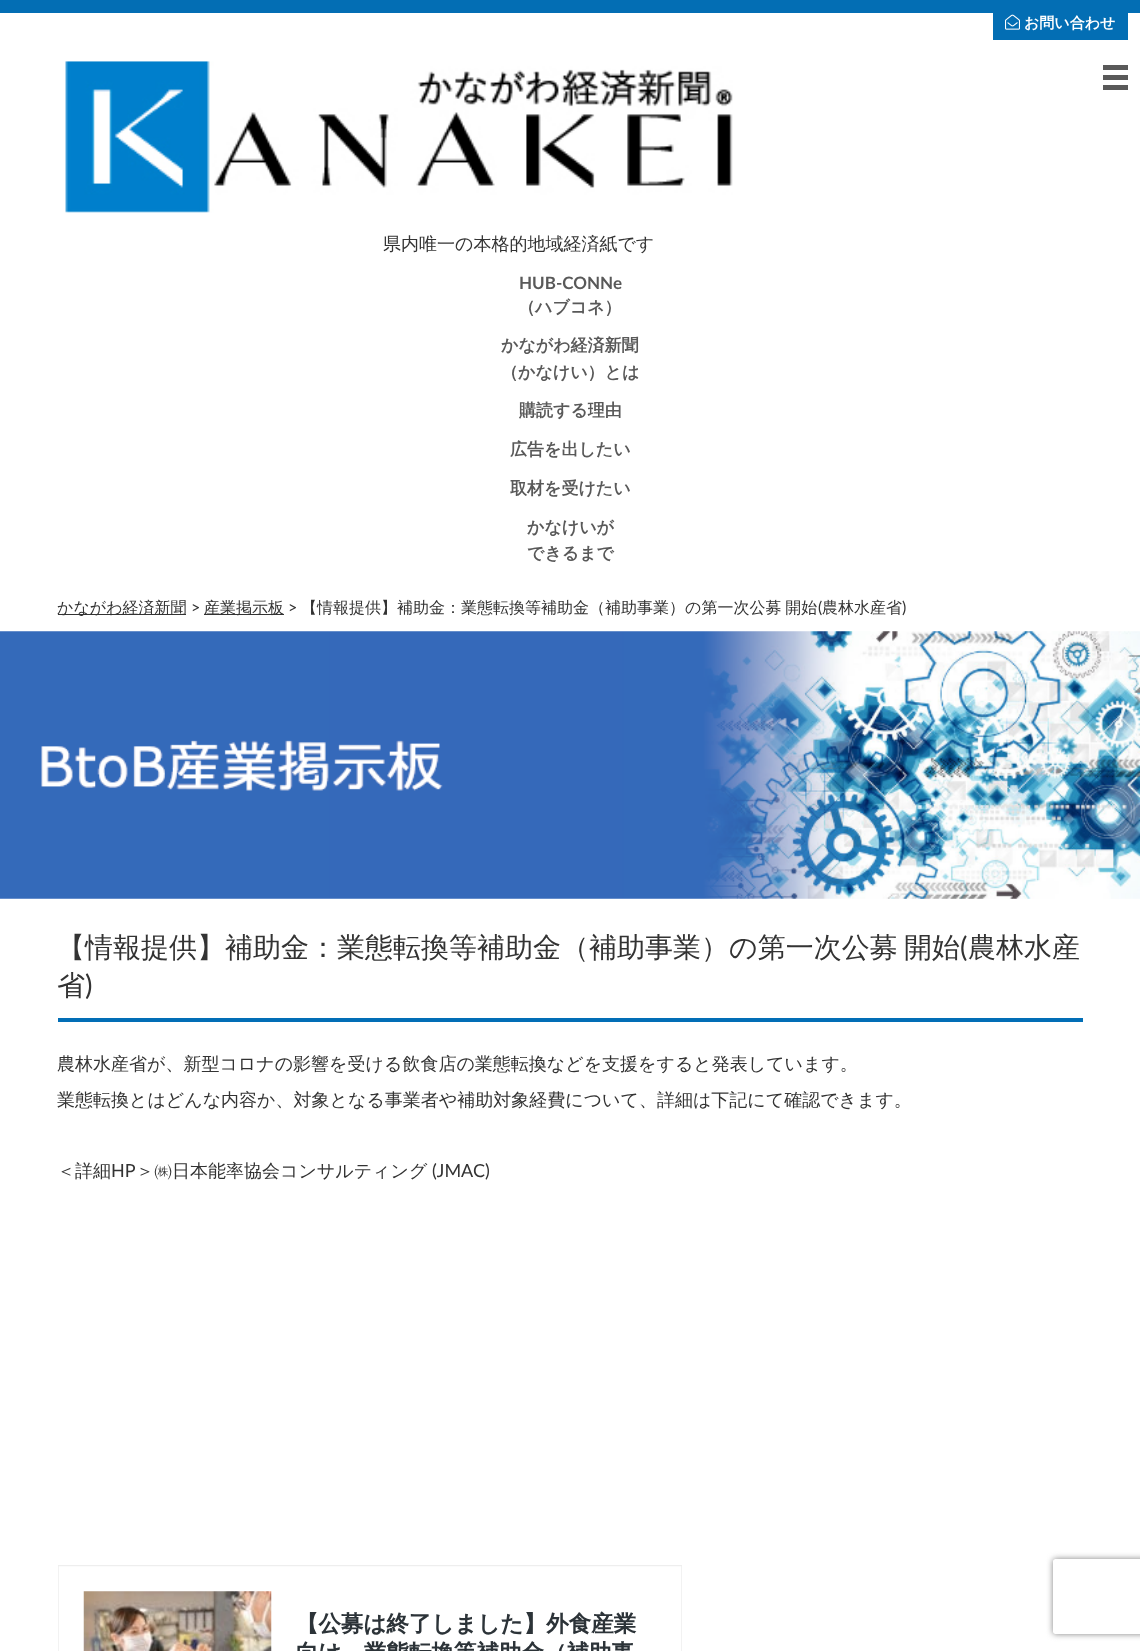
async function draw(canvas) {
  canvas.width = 1140
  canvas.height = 1651
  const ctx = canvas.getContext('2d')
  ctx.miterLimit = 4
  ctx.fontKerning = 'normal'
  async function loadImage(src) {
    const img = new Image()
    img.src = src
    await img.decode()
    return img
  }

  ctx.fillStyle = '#fff'
  ctx.fillRect(0, 0, 1140, 1651)
  ctx.fillStyle = '#036eb4'
  ctx.fillRect(0, 0, 1140, 13)
  ctx.fillRect(993, 13, 135, 27)
  ctx.drawImage(await loadImage('image0.png'), 1005, 14, 15, 16)
  ctx.font = 'bold 15px WenQuanYi Zen Hei'
  ctx.fillStyle = '#fff'
  ctx.fillText('お問い合わせ', 1024, 28)
  ctx.drawImage(await loadImage('image1.png'), 65, 61, 668, 152)
  ctx.font = '500 18px WenQuanYi Zen Hei'
  ctx.fillStyle = '#333'
  ctx.fillText('県内唯一の本格的地域経済紙です', 383, 250)
  ctx.fillStyle = '#595959'
  ctx.fillRect(1103, 65, 25, 25)
  ctx.fillStyle = '#fff'
  ctx.fillRect(1103, 70, 25, 5)
  ctx.fillRect(1103, 80, 25, 5)
  ctx.font = 'bold 17px Lato'
  ctx.fillStyle = '#595959'
  ctx.fillText('HUB-CONNe', 519, 289)
  ctx.font = 'bold 17px WenQuanYi Zen Hei'
  ctx.fillText('（ハブコネ）', 518, 313)
  ctx.fillText('かながわ経済新聞', 501, 351)
  ctx.fillText('（かなけい）とは', 501, 378)
  ctx.fillText('購読する理由', 519, 416)
  ctx.fillText('広告を出したい', 510, 455)
  ctx.fillText('取材を受けたい', 510, 494)
  ctx.fillText('かなけいが', 527, 533)
  ctx.fillText('できるまで', 527, 559)
  ctx.fillStyle = '#333'
  ctx.fillRect(58, 614, 128, 1)
  ctx.font = '500 16px WenQuanYi Zen Hei'
  ctx.fillText('かながわ経済新聞', 57, 613)
  ctx.font = '16px Lato'
  ctx.fillText('>', 191, 613)
  ctx.fillRect(204, 614, 80, 1)
  ctx.font = '500 16px WenQuanYi Zen Hei'
  ctx.fillText('産業掲示板', 204, 613)
  ctx.font = '16px Lato'
  ctx.fillText('>', 288, 613)
  ctx.wordSpacing = '-1px'
  ctx.font = '500 16px WenQuanYi Zen Hei'
  ctx.fillText('【情報提供】補助金：業態転換等補助金（補助事業）の第一次公募 開始', 301, 613)
  ctx.wordSpacing = '0px'
  ctx.font = '16px Lato'
  ctx.fillText('(', 818, 613)
  ctx.font = '500 16px WenQuanYi Zen Hei'
  ctx.fillText('農林水産省', 822, 613)
  ctx.font = '16px Lato'
  ctx.fillText(')', 902, 613)
  ctx.drawImage(await loadImage('image2.png'), 0, 631, 1140, 268)
  ctx.fillStyle = '#026eb6'
  ctx.fillRect(58, 1018, 1025, 4)
  ctx.wordSpacing = '-2px'
  ctx.font = '500 28px WenQuanYi Zen Hei'
  ctx.fillStyle = '#333'
  ctx.fillText('【情報提供】補助金：業態転換等補助金（補助事業）の第一次公募 開始', 57, 957)
  ctx.wordSpacing = '0px'
  ctx.font = '28px Lato'
  ctx.fillText('(', 960, 957)
  ctx.font = '500 28px WenQuanYi Zen Hei'
  ctx.fillText('農林水産', 968, 957)
  ctx.fillText('省', 57, 995)
  ctx.font = '28px Lato'
  ctx.fillText(')', 85, 995)
  ctx.font = '500 18px WenQuanYi Zen Hei'
  ctx.fillText('農林水産省が、新型コロナの影響を受ける飲食店の業態転換などを支援をすると発表しています。', 57, 1070)
  ctx.fillText('業態転換とはどんな内容か、対象となる事業者や補助対象経費について、詳細は下記にて確認できます。', 57, 1106)
  ctx.fillText('＜詳細', 57, 1177)
  ctx.font = '18px Lato'
  ctx.fillText('HP', 111, 1177)
  ctx.font = '500 18px WenQuanYi Zen Hei'
  ctx.fillText('＞㈱日本能率協会コンサルティング', 136, 1177)
  ctx.font = '18px Lato'
  ctx.fillText('(JMAC)', 432, 1177)
  ctx.drawImage(await loadImage('image3.png'), 58, 1565, 624, 86)
  ctx.save()
  ctx.beginPath()
  ctx.moveTo(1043, 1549)
  ctx.lineTo(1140, 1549)
  ctx.lineTo(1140, 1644)
  ctx.lineTo(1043, 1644)
  ctx.closePath()
  ctx.moveTo(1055.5, 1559)
  ctx.lineTo(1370.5, 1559)
  ctx.bezierCurveTo(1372, 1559, 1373, 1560, 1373, 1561.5)
  ctx.lineTo(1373, 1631.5)
  ctx.bezierCurveTo(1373, 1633, 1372, 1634, 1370.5, 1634)
  ctx.lineTo(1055.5, 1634)
  ctx.bezierCurveTo(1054, 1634, 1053, 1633, 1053, 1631.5)
  ctx.lineTo(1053, 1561.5)
  ctx.bezierCurveTo(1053, 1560, 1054, 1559, 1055.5, 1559)
  ctx.closePath()
  ctx.clip('evenodd')
  ctx.fillStyle = '#808080'
  ctx.filter = 'blur(3px)'
  ctx.beginPath()
  ctx.roundRect(1053, 1559, 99, 75, 2.5)
  ctx.fill()
  ctx.filter = 'none'
  ctx.restore()
}

draw(document.querySelector('canvas'))
